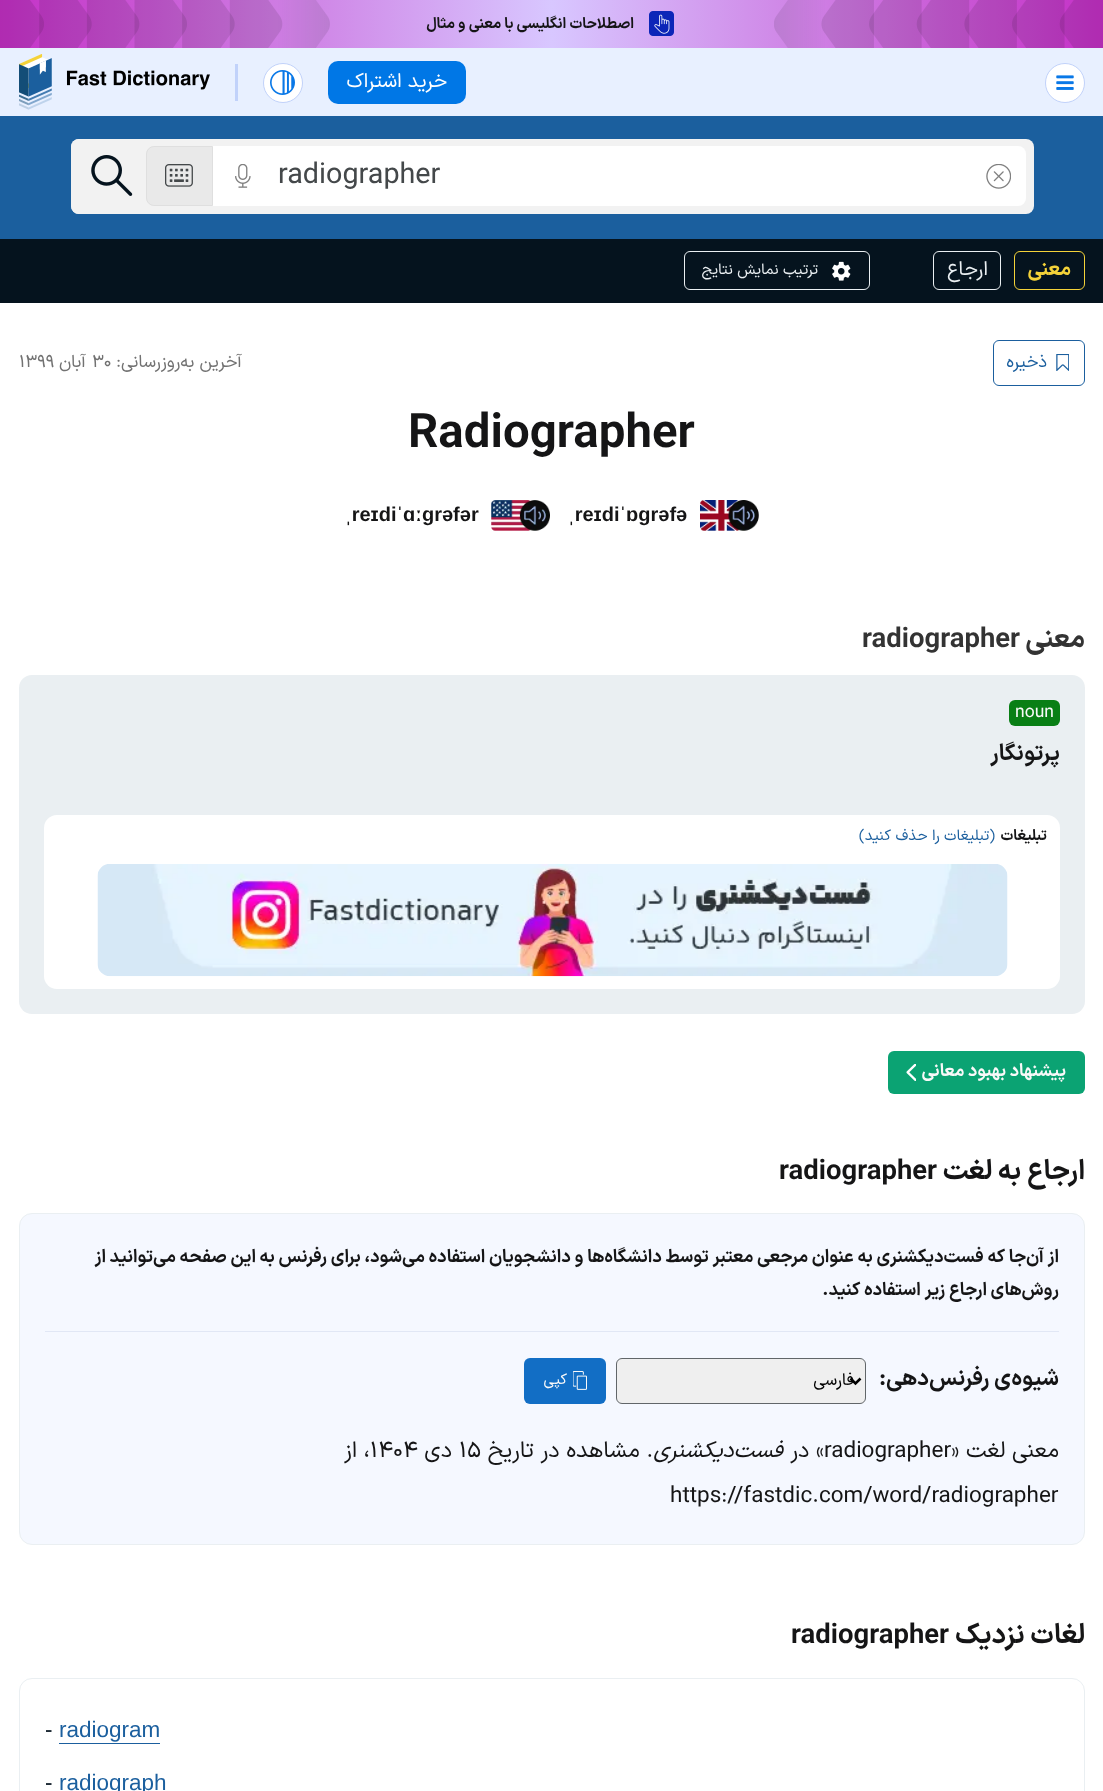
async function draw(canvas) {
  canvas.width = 1103
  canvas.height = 1791
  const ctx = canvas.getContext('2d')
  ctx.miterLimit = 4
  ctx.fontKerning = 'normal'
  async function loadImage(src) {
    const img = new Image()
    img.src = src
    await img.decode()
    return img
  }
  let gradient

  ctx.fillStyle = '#fff'
  ctx.fillRect(0, 0, 1103, 1791)
  gradient = ctx.createLinearGradient(0, 24, 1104, 24)
  gradient.addColorStop(0, '#c430c6')
  gradient.addColorStop(0.5, '#d8c7ff')
  gradient.addColorStop(1, '#c430c6')
  ctx.fillStyle = gradient
  ctx.fillRect(0, 0, 1103, 48)
  ctx.drawImage(await loadImage('image0.png'), 774, 0, 329, 48)
  ctx.drawImage(await loadImage('image1.png'), 649, 11, 25, 25)
  ctx.direction = 'rtl'
  ctx.font = 'bold 15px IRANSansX'
  ctx.fillStyle = '#151516'
  ctx.fillText('اصطلاحات انگلیسی با معنی و مثال', 634, 28)
  ctx.drawImage(await loadImage('image2.png'), 0, 0, 330, 48)
  ctx.fillStyle = '#e8f0ff'
  ctx.fillRect(0, 48, 1103, 68)
  ctx.fillStyle = '#fff'
  ctx.beginPath()
  ctx.arc(1065, 83, 19.5, 0, 2 * Math.PI)
  ctx.fill()
  ctx.strokeStyle = '#c1d2fa'
  ctx.stroke()
  ctx.drawImage(await loadImage('image3.png'), 1056, 75, 18, 15)
  ctx.fillStyle = '#0077e6'
  ctx.beginPath()
  ctx.roundRect(328, 61, 138, 43, 10)
  ctx.fill()
  ctx.font = '20px IRANSansX'
  ctx.fillStyle = '#fff'
  ctx.fillText('خرید اشتراک', 447, 87)
  ctx.beginPath()
  ctx.arc(283, 83, 19.5, 0, 2 * Math.PI)
  ctx.fill()
  ctx.stroke()
  ctx.drawImage(await loadImage('image4.png'), 270, 70, 25, 25)
  ctx.fillStyle = '#c1d2fa'
  ctx.fillRect(235, 64, 3, 37)
  ctx.drawImage(await loadImage('image5.png'), 19, 54, 191, 56)
  ctx.fillStyle = '#1b5f9e'
  ctx.fillRect(0, 116, 1103, 123)
  ctx.fillStyle = '#f2f2f2'
  ctx.beginPath()
  ctx.roundRect(71, 139, 963, 75, 8)
  ctx.fill()
  ctx.fillStyle = '#fff'
  ctx.beginPath()
  ctx.roundRect(79, 146, 947, 60, 8)
  ctx.fill()
  ctx.drawImage(await loadImage('image6.png'), 986, 164, 25, 25)
  ctx.direction = 'ltr'
  ctx.font = '28.75px IRANSansX'
  ctx.fillStyle = '#44484a'
  ctx.fillText('radiographer', 278, 183)
  ctx.drawImage(await loadImage('image7.png'), 235, 164, 16, 24)
  ctx.fillStyle = '#f2f2f2'
  ctx.beginPath()
  ctx.roundRect(71, 139, 82, 75, [8, 0, 0, 8])
  ctx.fill()
  ctx.fillStyle = '#e9e9e9'
  ctx.beginPath()
  ctx.roundRect(146.5, 146.5, 66, 59, [7.5, 0, 0, 7.5])
  ctx.fill()
  ctx.strokeStyle = '#dfdfdf'
  ctx.stroke()
  ctx.drawImage(await loadImage('image8.png'), 165, 164, 28, 23)
  ctx.drawImage(await loadImage('image9.png'), 91, 155, 42, 41)
  ctx.fillStyle = '#05131e'
  ctx.fillRect(0, 239, 1103, 64)
  ctx.beginPath()
  ctx.roundRect(1014.5, 251.5, 70, 38, 5.5)
  ctx.strokeStyle = '#f4d239'
  ctx.stroke()
  ctx.direction = 'rtl'
  ctx.font = 'bold 20px IRANSansX'
  ctx.fillStyle = '#f4d239'
  ctx.fillText('معنی', 1071, 275)
  ctx.beginPath()
  ctx.roundRect(933.5, 251.5, 67, 38, 5.5)
  ctx.strokeStyle = '#eaeff2'
  ctx.stroke()
  ctx.font = '20px IRANSansX'
  ctx.fillStyle = '#eaeff2'
  ctx.fillText('ارجاع', 988, 275)
  ctx.beginPath()
  ctx.roundRect(684.5, 251.5, 185, 38, 5.5)
  ctx.stroke()
  ctx.drawImage(await loadImage('image10.png'), 832, 261, 19, 20)
  ctx.font = '15px IRANSansX'
  ctx.fillText('ترتیب نمایش نتایج', 818, 274)
  ctx.beginPath()
  ctx.roundRect(993.5, 340.5, 91, 45, 5.5)
  ctx.strokeStyle = '#1b5f9e'
  ctx.stroke()
  ctx.drawImage(await loadImage('image11.png'), 1056, 354, 13, 17)
  ctx.font = '17.5px IRANSansX'
  ctx.fillStyle = '#1b5f9e'
  ctx.fillText('ذخیره', 1047, 367)
  ctx.fillStyle = '#727272'
  ctx.fillText('آخرین به‌روزرسانی:', 242, 367)
  ctx.direction = 'ltr'
  ctx.fillText('۳۰', 92, 367)
  ctx.direction = 'rtl'
  ctx.fillText('آبان', 86, 367)
  ctx.direction = 'ltr'
  ctx.fillText('۱۳۹۹', 19, 367)
  ctx.font = 'bold 47.5px IRANSansX'
  ctx.fillStyle = '#151516'
  ctx.fillText('Radiographer', 408, 447)
  ctx.drawImage(await loadImage('image12.png'), 700, 500, 59, 31)
  ctx.font = 'bold 20px Liberation Sans'
  ctx.fillText('ˌreɪdiˈɒɡrəfə', 568, 521)
  ctx.drawImage(await loadImage('image13.png'), 491, 500, 59, 31)
  ctx.fillText('ˌreɪdiˈɑːɡrəfər', 345, 521)
  ctx.direction = 'rtl'
  ctx.font = 'bold 27.5px IRANSansX'
  ctx.fillStyle = '#333'
  ctx.fillText('معنی', 1085, 647)
  ctx.direction = 'ltr'
  ctx.fillText('radiographer', 862, 647)
  ctx.fillStyle = '#eaeff2'
  ctx.beginPath()
  ctx.roundRect(19, 675, 1066, 339, 13)
  ctx.fill()
  ctx.fillStyle = '#097f15'
  ctx.beginPath()
  ctx.roundRect(1009, 700, 51, 26, 6)
  ctx.fill()
  ctx.font = '17.5px IRANSansX'
  ctx.fillStyle = '#f9f9f9'
  ctx.fillText('noun', 1015, 717)
  ctx.direction = 'rtl'
  ctx.font = 'bold 22.5px IRANSansX'
  ctx.fillStyle = '#151516'
  ctx.fillText('پرتونگار', 1060, 760)
  ctx.fillStyle = '#fff'
  ctx.beginPath()
  ctx.roundRect(44, 815, 1016, 174, 13)
  ctx.fill()
  ctx.font = 'bold 15px IRANSansX'
  ctx.fillStyle = '#151516'
  ctx.fillText('تبلیغات', 1047, 840)
  ctx.font = '15px IRANSansX'
  ctx.fillStyle = '#1b5f9e'
  ctx.fillText('(تبلیغات را حذف کنید)', 995, 840)
  ctx.drawImage(await loadImage('image14.png'), 97, 864, 911, 113)
  ctx.fillStyle = '#0ba373'
  ctx.beginPath()
  ctx.roundRect(888, 1051, 197, 43, 6)
  ctx.fill()
  ctx.font = 'bold 17.5px IRANSansX'
  ctx.fillStyle = '#f9f9f9'
  ctx.fillText('پیشنهاد بهبود معانی', 1066, 1076)
  ctx.drawImage(await loadImage('image15.png'), 906, 1064, 10, 17)
  ctx.font = 'bold 27.5px IRANSansX'
  ctx.fillStyle = '#151516'
  ctx.fillText('ارجاع به لغت', 1085, 1179)
  ctx.direction = 'ltr'
  ctx.fillText('radiographer', 779, 1179)
  ctx.fillStyle = '#f5f8ff'
  ctx.beginPath()
  ctx.roundRect(19.5, 1213.5, 1065, 331, 12.5)
  ctx.fill()
  ctx.strokeStyle = '#eaeff2'
  ctx.stroke()
  ctx.fillStyle = '#e1e7f5'
  ctx.fillRect(45, 1331, 1014, 1)
  ctx.direction = 'rtl'
  ctx.font = 'bold 18px IRANSansX'
  ctx.fillStyle = '#151516'
  ctx.fillText('از آن‌جا که فست‌دیکشنری به عنوان مرجعی معتبر توسط دانشگاه‌ها و دانشجویان استفاده می‌شود، برای رفرنس به این صفحه می‌توانید از', 1059, 1262)
  ctx.fillText('روش‌های ارجاع زیر استفاده کنید.', 1059, 1295)
  ctx.font = 'bold 22.5px IRANSansX'
  ctx.fillText('شیوه‌ی رفرنس‌دهی:', 1059, 1385)
  ctx.fillStyle = '#efefef'
  ctx.beginPath()
  ctx.roundRect(616.5, 1358.5, 249, 45, 5.5)
  ctx.fill()
  ctx.strokeStyle = '#616669'
  ctx.stroke()
  ctx.beginPath()
  ctx.moveTo(850.5, 1378.5)
  ctx.lineTo(855.5, 1383.5)
  ctx.lineTo(860.5, 1378.5)
  ctx.strokeStyle = '#000'
  ctx.lineWidth = 2.5
  ctx.stroke()
  ctx.font = '17px IRANSansX'
  ctx.fillStyle = '#000'
  ctx.fillText('فارسی', 854, 1385)
  ctx.fillStyle = '#126ec5'
  ctx.beginPath()
  ctx.roundRect(524, 1358, 82, 46, 6)
  ctx.fill()
  ctx.drawImage(await loadImage('image16.png'), 573, 1371, 14, 19)
  ctx.font = '15px IRANSansX'
  ctx.fillStyle = '#f9f9f9'
  ctx.fillText('کپی', 567, 1384)
  ctx.font = '22.5px IRANSansX'
  ctx.fillStyle = '#151516'
  ctx.fillText('معنی لغت «', 1059, 1457)
  ctx.direction = 'ltr'
  ctx.fillText('radiographer', 824, 1457)
  ctx.direction = 'rtl'
  ctx.fillText('» در', 824, 1457)
  ctx.font = 'italic 22.5px IRANSansX'
  ctx.fillText('فست‌دیکشنری', 783, 1457)
  ctx.font = '22.5px IRANSansX'
  ctx.fillText('. مشاهده در تاریخ', 653, 1457)
  ctx.direction = 'ltr'
  ctx.fillText('۱۵', 459, 1457)
  ctx.direction = 'rtl'
  ctx.fillText('دی', 452, 1457)
  ctx.direction = 'ltr'
  ctx.fillText('۱۴۰۴', 370, 1457)
  ctx.direction = 'rtl'
  ctx.fillText('، از', 370, 1457)
  ctx.direction = 'ltr'
  ctx.fillText('https://fastdic.com/word/radiographer', 670, 1502)
  ctx.direction = 'rtl'
  ctx.font = 'bold 27.5px IRANSansX'
  ctx.fillText('لغات نزدیک', 1085, 1643)
  ctx.direction = 'ltr'
  ctx.fillText('radiographer', 791, 1643)
  ctx.beginPath()
  ctx.roundRect(19.5, 1678.5, 1065, 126, 12.5)
  ctx.strokeStyle = '#eaeff2'
  ctx.lineWidth = 1
  ctx.stroke()
  ctx.font = '22.5px Liberation Sans'
  ctx.fillStyle = '#1b5f9e'
  ctx.fillText('radiogram', 59, 1737)
  ctx.fillRect(59, 1743, 101, 1)
  ctx.fillStyle = '#05131e'
  ctx.fillText('-', 45, 1737)
  ctx.fillStyle = '#1b5f9e'
  ctx.fillText('radiograph', 59, 1790)
  ctx.fillStyle = '#05131e'
  ctx.fillText('-', 45, 1790)
}

draw(document.querySelector('canvas'))
